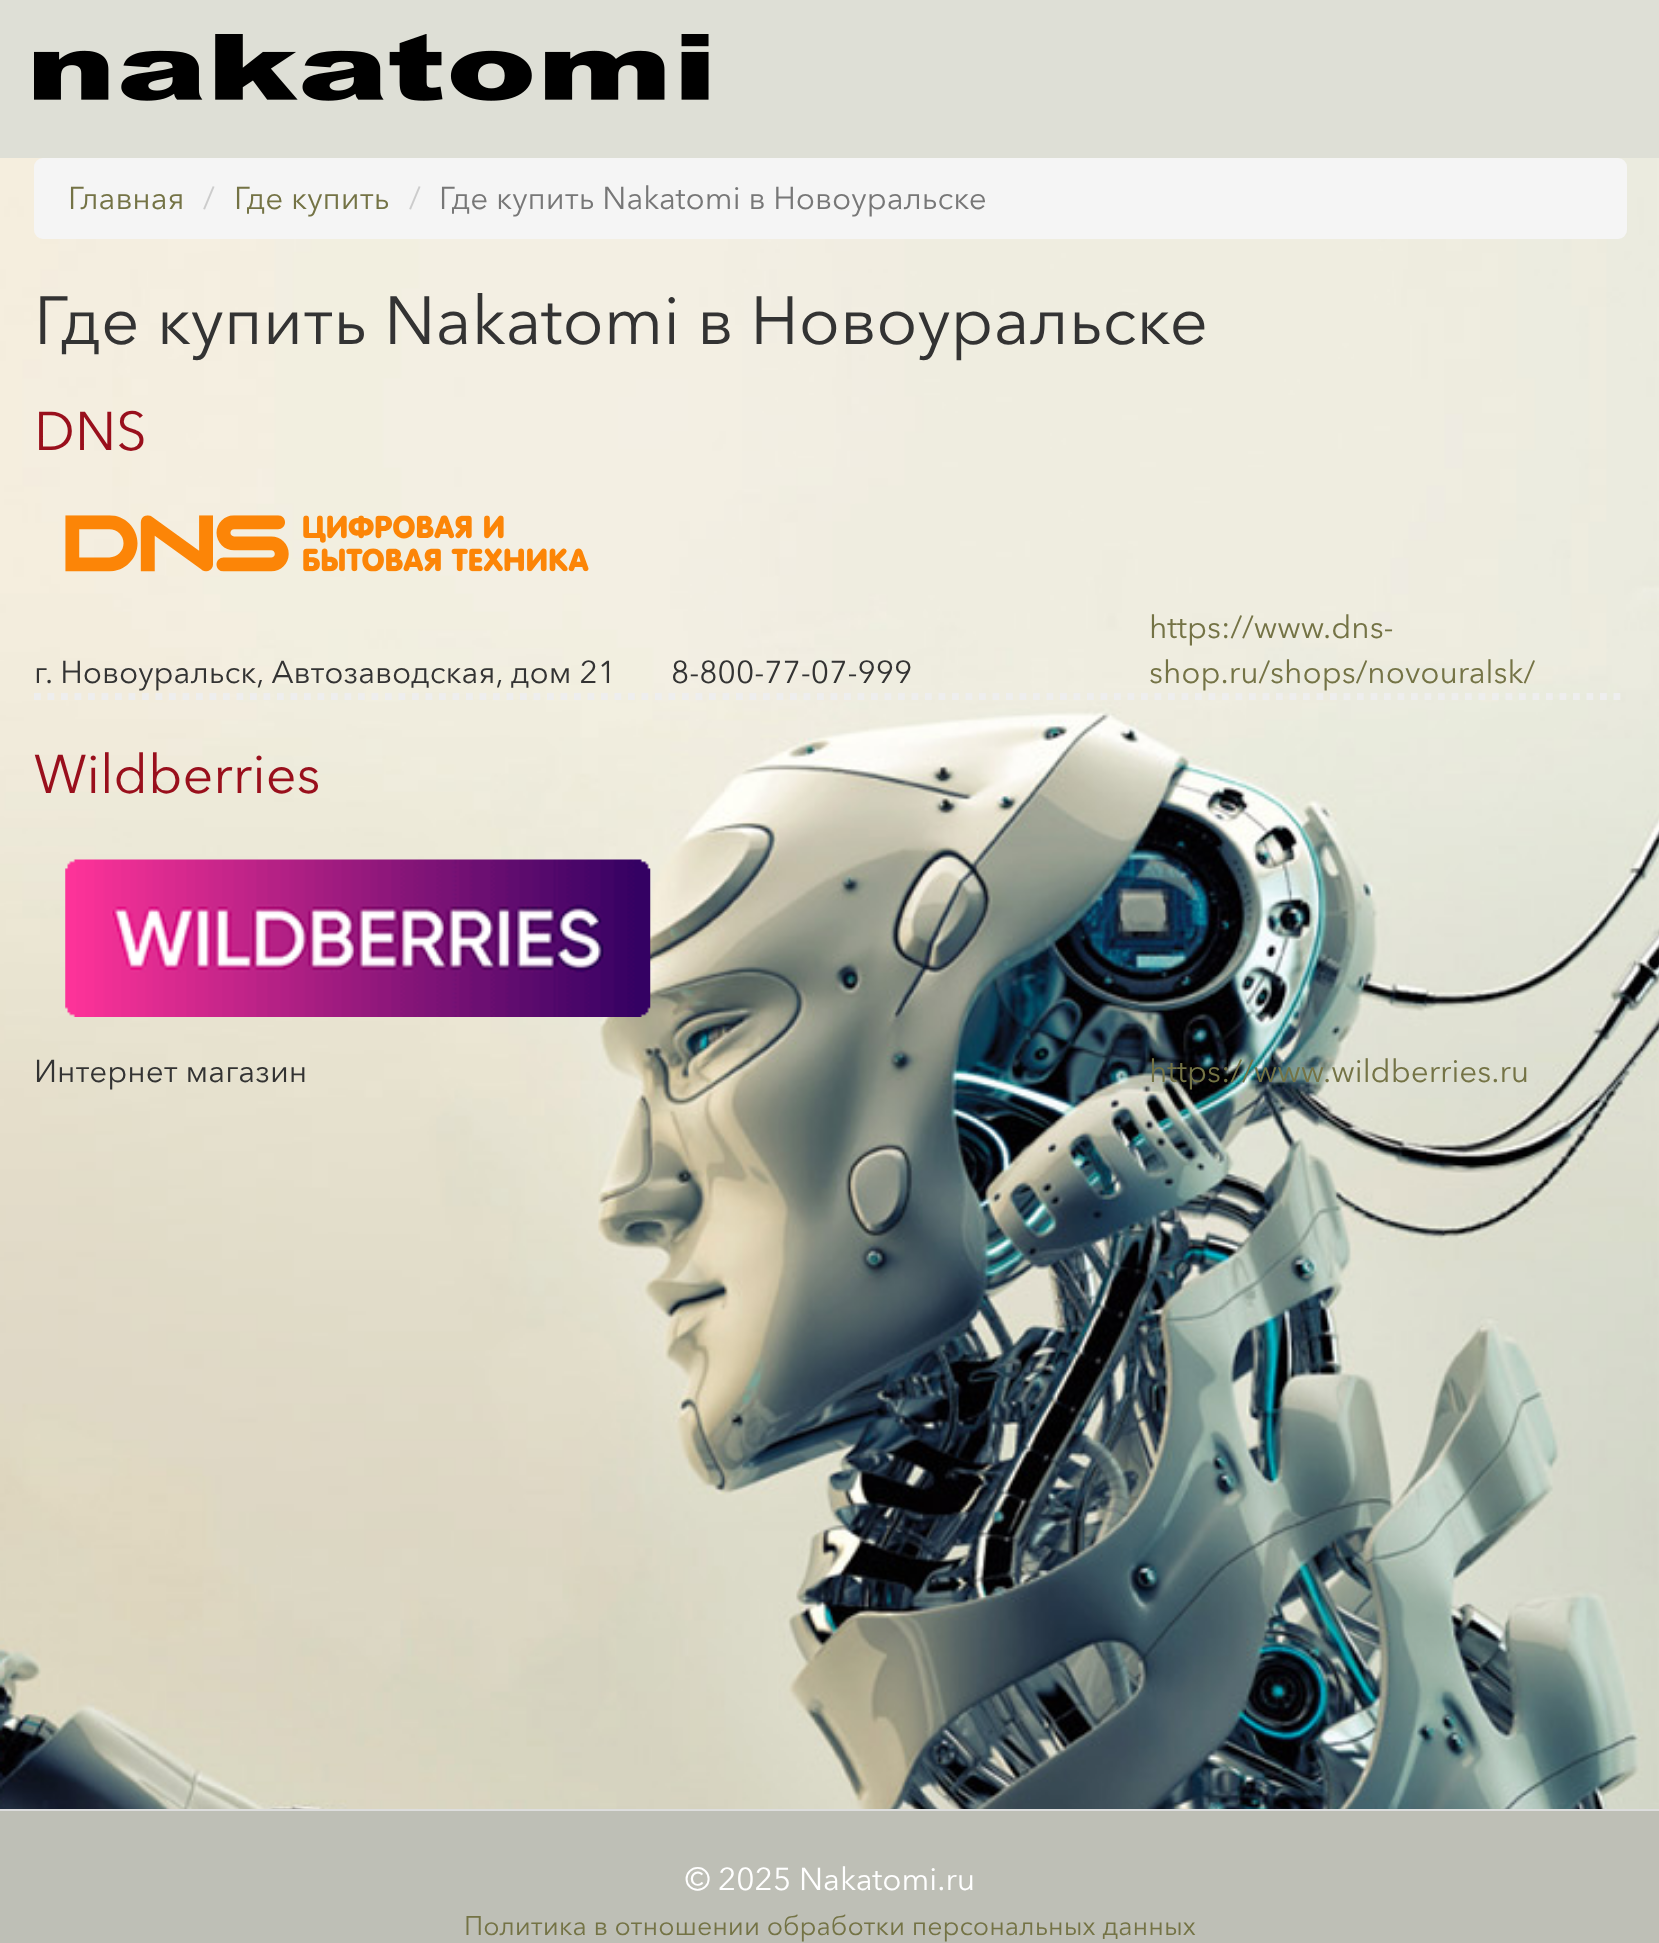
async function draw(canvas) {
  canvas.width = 1659
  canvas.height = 1943
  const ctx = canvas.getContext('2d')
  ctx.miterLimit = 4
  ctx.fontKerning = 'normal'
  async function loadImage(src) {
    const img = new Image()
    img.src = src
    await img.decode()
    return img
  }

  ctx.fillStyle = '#fff'
  ctx.fillRect(0, 0, 1659, 1943)
  ctx.drawImage(await loadImage('image0.png'), 0, 158, 1659, 1651)
  ctx.fillStyle = '#dedfd6'
  ctx.fillRect(0, 0, 1659, 158)
  ctx.drawImage(await loadImage('image1.png'), 34, 34, 675, 67)
  ctx.fillStyle = '#f5f5f5'
  ctx.beginPath()
  ctx.roundRect(34, 158, 1593, 81, 9)
  ctx.fill()
  ctx.font = '31.5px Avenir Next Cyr'
  ctx.fillStyle = '#747345'
  ctx.fillText('Главная', 68, 209)
  ctx.fillStyle = '#ccc'
  ctx.fillText('/', 203, 209)
  ctx.fillStyle = '#747345'
  ctx.fillText('Где купить', 234, 209)
  ctx.fillStyle = '#ccc'
  ctx.fillText('/', 409, 209)
  ctx.fillStyle = '#777'
  ctx.fillText('Где купить Nakatomi в Новоуральске', 439, 209)
  ctx.font = '67.5px Avenir Next Cyr'
  ctx.fillStyle = '#333'
  ctx.fillText('Где купить Nakatomi в Новоуральске', 34, 344)
  ctx.font = '54px Avenir Next Cyr'
  ctx.fillStyle = '#990f1c'
  ctx.fillText('DNS', 34, 450)
  ctx.drawImage(await loadImage('image2.png'), 65, 515, 524, 57)
  ctx.beginPath()
  ctx.moveTo(34, 696.5)
  ctx.lineTo(1627, 696.5)
  ctx.strokeStyle = '#eee'
  ctx.lineWidth = 6.8
  ctx.setLineDash([6.75, 6.75])
  ctx.stroke()
  ctx.font = '31.5px Avenir Next Cyr'
  ctx.fillStyle = '#333'
  ctx.fillText('г. Новоуральск, Автозаводская, дом 21', 34, 683)
  ctx.fillText('8-800-77-07-999', 671, 683)
  ctx.fillStyle = '#747345'
  ctx.fillText('https://www.dns-', 1149, 638)
  ctx.fillText('shop.ru/shops/novouralsk/', 1149, 683)
  ctx.font = '54px Avenir Next Cyr'
  ctx.fillStyle = '#990f1c'
  ctx.fillText('Wildberries', 34, 793)
  ctx.drawImage(await loadImage('image3.png'), 65, 859, 586, 158)
  ctx.font = '31.5px Avenir Next Cyr'
  ctx.fillStyle = '#333'
  ctx.fillText('Интернет магазин', 34, 1082)
  ctx.fillStyle = '#747345'
  ctx.fillText('https://www.wildberries.ru', 1149, 1082)
  ctx.fillStyle = '#bebfb6'
  ctx.fillRect(0, 1811, 1659, 132)
  ctx.fillStyle = '#ddd'
  ctx.fillRect(0, 1809, 1659, 2)
  ctx.fillStyle = '#fff'
  ctx.fillText('© 2025 Nakatomi.ru', 685, 1890)
  ctx.font = '26.75px Avenir Next Cyr'
  ctx.fillStyle = '#747345'
  ctx.fillText('Политика в отношении обработки персональных данных', 464, 1935)
}

draw(document.querySelector('canvas'))
